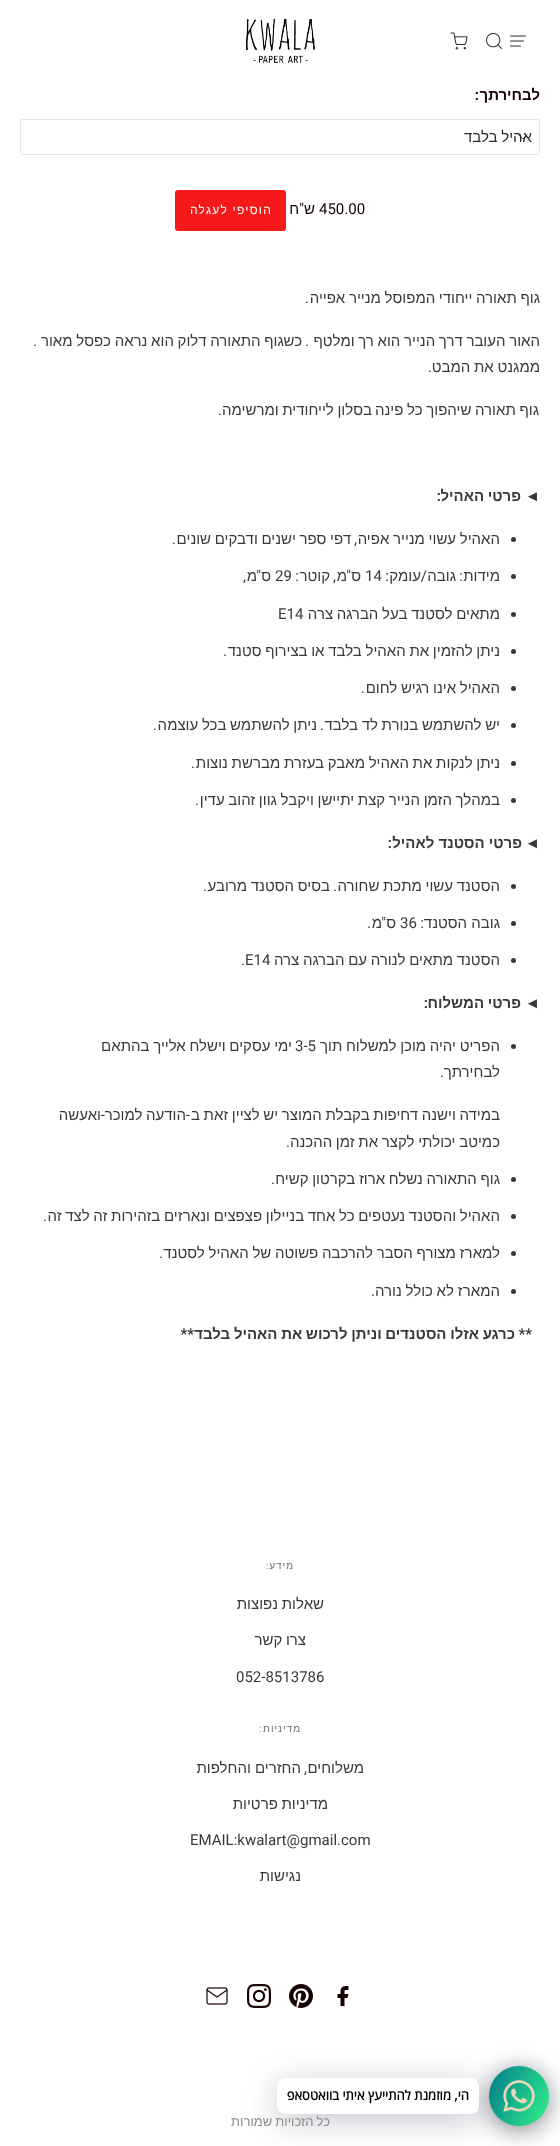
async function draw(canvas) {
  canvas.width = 560
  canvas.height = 2146
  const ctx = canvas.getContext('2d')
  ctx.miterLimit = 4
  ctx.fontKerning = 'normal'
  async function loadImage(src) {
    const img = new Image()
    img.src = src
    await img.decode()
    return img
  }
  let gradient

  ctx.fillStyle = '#fff'
  ctx.fillRect(0, 0, 560, 2146)
  ctx.drawImage(await loadImage('image0.png'), 510, 35, 16, 12)
  ctx.drawImage(await loadImage('image1.png'), 486, 33, 16, 16)
  ctx.drawImage(await loadImage('image2.png'), 450, 32, 18, 18)
  ctx.drawImage(await loadImage('image3.png'), 245, 18, 70, 45)
  ctx.direction = 'rtl'
  ctx.font = 'bold 15px Liberation Sans'
  ctx.fillStyle = '#160202'
  ctx.fillText('לבחירתך', 540, 100)
  ctx.font = 'bold 15px Roboto'
  ctx.fillText(':', 479, 100)
  ctx.beginPath()
  ctx.roundRect(20.5, 119.5, 519, 35, 2.5)
  ctx.strokeStyle = '#e5e5e5'
  ctx.stroke()
  ctx.wordSpacing = '-0.5px'
  ctx.font = '15px Liberation Sans'
  ctx.fillStyle = '#2b2927'
  ctx.fillText('אהיל בלבד', 532, 142)
  ctx.beginPath()
  ctx.moveTo(519, 135)
  ctx.lineTo(523, 139)
  ctx.lineTo(527, 135)
  ctx.strokeStyle = '#160202'
  ctx.lineWidth = 0.8
  ctx.lineCap = 'round'
  ctx.lineJoin = 'round'
  ctx.stroke()
  ctx.wordSpacing = '0px'
  ctx.direction = 'ltr'
  ctx.font = '15px Roboto'
  ctx.fillStyle = '#160202'
  ctx.fillText('450.00', 319, 214)
  ctx.direction = 'rtl'
  ctx.font = '15px Liberation Sans'
  ctx.fillText('ש', 315, 214)
  ctx.font = '15px Roboto'
  ctx.fillText('"', 304, 214)
  ctx.font = '15px Liberation Sans'
  ctx.fillText('ח', 299, 214)
  ctx.fillStyle = '#f51919'
  ctx.beginPath()
  ctx.roundRect(175, 190, 111, 41, 3)
  ctx.fill()
  ctx.letterSpacing = '1.25px'
  ctx.font = '12px Liberation Sans'
  ctx.fillStyle = '#fff'
  ctx.fillText('הוסיפי לעגלה', 272, 214)
  ctx.letterSpacing = '0px'
  ctx.wordSpacing = '-0.5px'
  ctx.font = '15px Liberation Sans'
  ctx.fillStyle = '#3d3838'
  ctx.fillText('גוף תאורה ייחודי המפוסל מנייר אפייה', 540, 303)
  ctx.wordSpacing = '0px'
  ctx.font = '15px Roboto'
  ctx.fillText('.', 309, 303)
  ctx.wordSpacing = '-0.5px'
  ctx.font = '15px Liberation Sans'
  ctx.fillText('האור העובר דרך הנייר הוא רך ומלטף', 540, 346)
  ctx.wordSpacing = '0px'
  ctx.font = '15px Roboto'
  ctx.fillText('.', 309, 346)
  ctx.wordSpacing = '-0.5px'
  ctx.font = '15px Liberation Sans'
  ctx.fillText('כשגוף התאורה דלוק הוא נראה כפסל מאור', 302, 346)
  ctx.wordSpacing = '0px'
  ctx.font = '15px Roboto'
  ctx.fillText('.', 37, 346)
  ctx.wordSpacing = '-0.5px'
  ctx.font = '15px Liberation Sans'
  ctx.fillText('ממגנט את המבט', 540, 372)
  ctx.wordSpacing = '0px'
  ctx.font = '15px Roboto'
  ctx.fillText('.', 432, 372)
  ctx.wordSpacing = '-0.5px'
  ctx.font = '15px Liberation Sans'
  ctx.fillText('גוף תאורה שיהפוך כל פינה', 539, 415)
  ctx.fillText('בסלון לייחודית ומרשימה', 372, 415)
  ctx.wordSpacing = '0px'
  ctx.font = '15px Roboto'
  ctx.fillText('.', 222, 415)
  ctx.direction = 'ltr'
  ctx.font = 'bold 15px Liberation Sans'
  ctx.fillText('◄', 525, 501)
  ctx.wordSpacing = '-0.5px'
  ctx.direction = 'rtl'
  ctx.fillText('פרטי האהיל', 521, 501)
  ctx.wordSpacing = '0px'
  ctx.font = 'bold 15px Roboto'
  ctx.fillText(':', 441, 501)
  ctx.beginPath()
  ctx.arc(513.5, 539.5, 2.5, 0, 2 * Math.PI)
  ctx.fill()
  ctx.wordSpacing = '-0.5px'
  ctx.font = '15px Liberation Sans'
  ctx.fillText('האהיל עשוי מנייר אפיה', 500, 544)
  ctx.fillText('דפי ספר ישנים ודבקים שונים', 351, 544)
  ctx.wordSpacing = '0px'
  ctx.font = '15px Roboto'
  ctx.fillText(',', 357, 544)
  ctx.fillText('.', 176, 544)
  ctx.beginPath()
  ctx.arc(513.5, 576.5, 2.5, 0, 2 * Math.PI)
  ctx.fill()
  ctx.font = '15px Liberation Sans'
  ctx.fillText('מידות', 500, 581)
  ctx.font = '15px Roboto'
  ctx.fillText(':', 463, 581)
  ctx.font = '15px Liberation Sans'
  ctx.fillText('גובה', 456, 581)
  ctx.font = '15px Roboto'
  ctx.fillText('/', 427, 581)
  ctx.font = '15px Liberation Sans'
  ctx.fillText('עומק', 421, 581)
  ctx.font = '15px Roboto'
  ctx.fillText(':', 389, 581)
  ctx.direction = 'ltr'
  ctx.fillText('14', 365, 581)
  ctx.direction = 'rtl'
  ctx.font = '15px Liberation Sans'
  ctx.fillText('ס', 361, 581)
  ctx.font = '15px Roboto'
  ctx.fillText('"', 351, 581)
  ctx.font = '15px Liberation Sans'
  ctx.fillText('מ', 347, 581)
  ctx.fillText('קוטר', 330, 581)
  ctx.font = '15px Roboto'
  ctx.fillText(':', 299, 581)
  ctx.direction = 'ltr'
  ctx.fillText('29', 275, 581)
  ctx.direction = 'rtl'
  ctx.font = '15px Liberation Sans'
  ctx.fillText('ס', 271, 581)
  ctx.font = '15px Roboto'
  ctx.fillText('"', 261, 581)
  ctx.font = '15px Liberation Sans'
  ctx.fillText('מ', 257, 581)
  ctx.font = '15px Roboto'
  ctx.fillText(',', 336, 581)
  ctx.fillText(',', 246, 581)
  ctx.beginPath()
  ctx.arc(513.5, 614.5, 2.5, 0, 2 * Math.PI)
  ctx.fill()
  ctx.wordSpacing = '-0.5px'
  ctx.font = '15px Liberation Sans'
  ctx.fillText('מתאים לסטנד בעל הברגה צרה', 500, 619)
  ctx.wordSpacing = '0px'
  ctx.direction = 'ltr'
  ctx.font = '15px Roboto'
  ctx.fillText('E14', 278, 619)
  ctx.beginPath()
  ctx.arc(513.5, 651.5, 2.5, 0, 2 * Math.PI)
  ctx.fill()
  ctx.wordSpacing = '-0.5px'
  ctx.direction = 'rtl'
  ctx.font = '15px Liberation Sans'
  ctx.fillText('ניתן להזמין את האהיל בלבד או בצירוף סטנד', 500, 656)
  ctx.wordSpacing = '0px'
  ctx.font = '15px Roboto'
  ctx.fillText('.', 227, 656)
  ctx.beginPath()
  ctx.arc(513.5, 688.5, 2.5, 0, 2 * Math.PI)
  ctx.fill()
  ctx.wordSpacing = '-0.5px'
  ctx.font = '15px Liberation Sans'
  ctx.fillText('האהיל אינו רגיש לחום', 500, 693)
  ctx.wordSpacing = '0px'
  ctx.font = '15px Roboto'
  ctx.fillText('.', 365, 693)
  ctx.beginPath()
  ctx.arc(513.5, 725.5, 2.5, 0, 2 * Math.PI)
  ctx.fill()
  ctx.wordSpacing = '-0.5px'
  ctx.font = '15px Liberation Sans'
  ctx.fillText('יש להשתמש בנורת לד בלבד', 500, 730)
  ctx.fillText('ניתן להשתמש בכל עוצמה', 317, 730)
  ctx.wordSpacing = '0px'
  ctx.font = '15px Roboto'
  ctx.fillText('.', 324, 730)
  ctx.fillText('.', 157, 730)
  ctx.beginPath()
  ctx.arc(513.5, 763.5, 2.5, 0, 2 * Math.PI)
  ctx.fill()
  ctx.wordSpacing = '-0.5px'
  ctx.font = '15px Liberation Sans'
  ctx.fillText('ניתן לנקות את האהיל מאבק בעזרת מברשת נוצות', 500, 768)
  ctx.wordSpacing = '0px'
  ctx.font = '15px Roboto'
  ctx.fillText('.', 195, 768)
  ctx.beginPath()
  ctx.arc(513.5, 800.5, 2.5, 0, 2 * Math.PI)
  ctx.fill()
  ctx.wordSpacing = '-0.5px'
  ctx.font = '15px Liberation Sans'
  ctx.fillText('במהלך הזמן הנייר קצת יתיישן ויקבל גוון זהוב עדין', 500, 805)
  ctx.wordSpacing = '0px'
  ctx.font = '15px Roboto'
  ctx.fillText('.', 199, 805)
  ctx.direction = 'ltr'
  ctx.font = 'bold 15px Liberation Sans'
  ctx.fillText('◄', 525, 848)
  ctx.direction = 'rtl'
  ctx.fillText('פרטי הסטנד לאהיל', 522, 848)
  ctx.font = 'bold 15px Roboto'
  ctx.fillText(':', 392, 848)
  ctx.beginPath()
  ctx.arc(513.5, 886.5, 2.5, 0, 2 * Math.PI)
  ctx.fill()
  ctx.wordSpacing = '-0.5px'
  ctx.font = '15px Liberation Sans'
  ctx.fillText('הסטנד עשוי מתכת שחורה', 500, 891)
  ctx.fillText('בסיס הסטנד מרובע', 330, 891)
  ctx.wordSpacing = '0px'
  ctx.font = '15px Roboto'
  ctx.fillText('.', 337, 891)
  ctx.fillText('.', 207, 891)
  ctx.beginPath()
  ctx.arc(513.5, 923.5, 2.5, 0, 2 * Math.PI)
  ctx.fill()
  ctx.font = '15px Liberation Sans'
  ctx.fillText('גובה הסטנד', 500, 928)
  ctx.font = '15px Roboto'
  ctx.fillText(':', 424, 928)
  ctx.direction = 'ltr'
  ctx.fillText('36', 400, 928)
  ctx.direction = 'rtl'
  ctx.font = '15px Liberation Sans'
  ctx.fillText('ס', 396, 928)
  ctx.font = '15px Roboto'
  ctx.fillText('"', 386, 928)
  ctx.font = '15px Liberation Sans'
  ctx.fillText('מ', 382, 928)
  ctx.font = '15px Roboto'
  ctx.fillText('.', 371, 928)
  ctx.beginPath()
  ctx.arc(513.5, 960.5, 2.5, 0, 2 * Math.PI)
  ctx.fill()
  ctx.wordSpacing = '-0.5px'
  ctx.font = '15px Liberation Sans'
  ctx.fillText('הסטנד מתאים לנורה עם הברגה צרה', 500, 965)
  ctx.wordSpacing = '0px'
  ctx.direction = 'ltr'
  ctx.font = '15px Roboto'
  ctx.fillText('E14', 245, 965)
  ctx.fillText('.', 241, 965)
  ctx.font = 'bold 15px Liberation Sans'
  ctx.fillText('◄', 525, 1008)
  ctx.wordSpacing = '-0.5px'
  ctx.direction = 'rtl'
  ctx.fillText('פרטי המשלוח', 521, 1008)
  ctx.wordSpacing = '0px'
  ctx.font = 'bold 15px Roboto'
  ctx.fillText(':', 428, 1008)
  ctx.beginPath()
  ctx.arc(513.5, 1046.5, 2.5, 0, 2 * Math.PI)
  ctx.fill()
  ctx.wordSpacing = '-0.5px'
  ctx.font = '15px Liberation Sans'
  ctx.fillText('הפריט יהיה מוכן למשלוח תוך', 500, 1051)
  ctx.wordSpacing = '0px'
  ctx.direction = 'ltr'
  ctx.font = '15px Roboto'
  ctx.fillText('3-5', 295, 1051)
  ctx.wordSpacing = '-0.5px'
  ctx.direction = 'rtl'
  ctx.font = '15px Liberation Sans'
  ctx.fillText('ימי עסקים וישלח אלייך בהתאם', 292, 1051)
  ctx.wordSpacing = '0px'
  ctx.fillText('לבחירתך', 500, 1077)
  ctx.font = '15px Roboto'
  ctx.fillText('.', 444, 1077)
  ctx.wordSpacing = '-0.5px'
  ctx.font = '15px Liberation Sans'
  ctx.fillText('במידה וישנה דחיפות בקבלת המוצר יש לציין זאת ב', 500, 1120)
  ctx.wordSpacing = '0px'
  ctx.font = '15px Roboto'
  ctx.fillText('-', 190, 1120)
  ctx.wordSpacing = '-0.5px'
  ctx.font = '15px Liberation Sans'
  ctx.fillText('הודעה למוכר', 186, 1120)
  ctx.wordSpacing = '0px'
  ctx.font = '15px Roboto'
  ctx.fillText('-', 105, 1120)
  ctx.font = '15px Liberation Sans'
  ctx.fillText('ואעשה', 101, 1120)
  ctx.wordSpacing = '-0.5px'
  ctx.fillText('כמיטב יכולתי לקצר את זמן ההכנה', 500, 1147)
  ctx.wordSpacing = '0px'
  ctx.font = '15px Roboto'
  ctx.fillText('.', 290, 1147)
  ctx.beginPath()
  ctx.arc(513.5, 1179.5, 2.5, 0, 2 * Math.PI)
  ctx.fill()
  ctx.wordSpacing = '-0.5px'
  ctx.font = '15px Liberation Sans'
  ctx.fillText('גוף התאורה נשלח ארוז בקרטון קשיח', 500, 1184)
  ctx.wordSpacing = '0px'
  ctx.font = '15px Roboto'
  ctx.fillText('.', 275, 1184)
  ctx.beginPath()
  ctx.arc(513.5, 1216.5, 2.5, 0, 2 * Math.PI)
  ctx.fill()
  ctx.wordSpacing = '-0.5px'
  ctx.font = '15px Liberation Sans'
  ctx.fillText('האהיל והסטנד נעטפים כל אחד בניילון פצפצים ונארזים בזהירות זה לצד זה', 500, 1221)
  ctx.wordSpacing = '0px'
  ctx.font = '15px Roboto'
  ctx.fillText('.', 47, 1221)
  ctx.beginPath()
  ctx.arc(513.5, 1253.5, 2.5, 0, 2 * Math.PI)
  ctx.fill()
  ctx.wordSpacing = '-0.5px'
  ctx.font = '15px Liberation Sans'
  ctx.fillText('למארז מצורף הסבר להרכבה פשוטה של האהיל לסטנד', 500, 1258)
  ctx.wordSpacing = '0px'
  ctx.font = '15px Roboto'
  ctx.fillText('.', 163, 1258)
  ctx.beginPath()
  ctx.arc(513.5, 1291.5, 2.5, 0, 2 * Math.PI)
  ctx.fill()
  ctx.wordSpacing = '-0.5px'
  ctx.font = '15px Liberation Sans'
  ctx.fillText('המארז לא כולל נורה', 500, 1296)
  ctx.wordSpacing = '0px'
  ctx.font = '15px Roboto'
  ctx.fillText('.', 375, 1296)
  ctx.font = 'bold 15px Roboto'
  ctx.fillText('**', 532, 1339)
  ctx.wordSpacing = '-0.5px'
  ctx.font = 'bold 15px Liberation Sans'
  ctx.fillText('כרגע אזלו הסטנדים וניתן לרכוש את האהיל בלבד', 515, 1339)
  ctx.wordSpacing = '0px'
  ctx.font = 'bold 15px Roboto'
  ctx.fillText('**', 194, 1339)
  ctx.fillStyle = '#02061080'
  ctx.filter = 'blur(12px)'
  ctx.beginPath()
  ctx.roundRect(489, 2070, 60, 60, 30)
  ctx.fill()
  ctx.filter = 'none'
  gradient = ctx.createLinearGradient(483, 2079, 555, 2113)
  gradient.addColorStop(0, '#047c8d')
  gradient.addColorStop(1, '#2ff289')
  ctx.fillStyle = gradient
  ctx.beginPath()
  ctx.arc(519, 2096, 30, 0, 2 * Math.PI)
  ctx.fill()
  ctx.fillStyle = '#00122e3d'
  ctx.filter = 'blur(16px)'
  ctx.beginPath()
  ctx.roundRect(277, 2084, 202, 36, 8)
  ctx.fill()
  ctx.filter = 'none'
  ctx.drawImage(await loadImage('image4.png'), 503, 2080, 32, 32)
  ctx.fillStyle = '#fff'
  ctx.beginPath()
  ctx.roundRect(277, 2078, 202, 36, 8)
  ctx.fill()
  ctx.font = 'bold 13px Open Sans'
  ctx.fillStyle = '#000'
  ctx.fillText('הי, מוזמנת להתייעץ איתי בוואטסאפ', 469, 2100)
  ctx.letterSpacing = '1px'
  ctx.font = '10px Liberation Sans'
  ctx.fillStyle = '#6a6a6a'
  ctx.fillText('מידע', 294, 1569)
  ctx.font = '300 10px Poppins'
  ctx.fillText(':', 269, 1569)
  ctx.letterSpacing = '0px'
  ctx.wordSpacing = '-0.5px'
  ctx.font = '15px Liberation Sans'
  ctx.fillStyle = '#3d3838'
  ctx.fillText('שאלות נפוצות', 324, 1609)
  ctx.fillText('צרו קשר', 306, 1645)
  ctx.wordSpacing = '0px'
  ctx.direction = 'ltr'
  ctx.font = '15px Roboto'
  ctx.fillText('052-8513786', 236, 1682)
  ctx.letterSpacing = '1px'
  ctx.direction = 'rtl'
  ctx.font = '10px Liberation Sans'
  ctx.fillStyle = '#6a6a6a'
  ctx.fillText('מדיניות', 301, 1732)
  ctx.font = '300 10px Poppins'
  ctx.fillText(':', 262, 1732)
  ctx.letterSpacing = '0px'
  ctx.font = '15px Liberation Sans'
  ctx.fillStyle = '#3d3838'
  ctx.fillText('משלוחים', 364, 1773)
  ctx.font = '15px Roboto'
  ctx.fillText(',', 307, 1773)
  ctx.font = '15px Liberation Sans'
  ctx.fillText('החזרים והחלפות', 301, 1773)
  ctx.wordSpacing = '-0.5px'
  ctx.fillText('מדיניות פרטיות', 328, 1809)
  ctx.wordSpacing = '0px'
  ctx.direction = 'ltr'
  ctx.font = '15px Roboto'
  ctx.fillText('EMAIL:kwalart@gmail.com', 190, 1845)
  ctx.direction = 'rtl'
  ctx.font = '15px Liberation Sans'
  ctx.fillText('נגישות', 301, 1881)
  ctx.drawImage(await loadImage('image5.png'), 337, 1986, 12, 20)
  ctx.drawImage(await loadImage('image6.png'), 289, 1984, 24, 24)
  ctx.drawImage(await loadImage('image7.png'), 247, 1984, 24, 24)
  ctx.drawImage(await loadImage('image8.png'), 206, 1987, 22, 18)
  ctx.wordSpacing = '-0.5px'
  ctx.font = '13px Liberation Sans'
  ctx.fillStyle = '#8b8888'
  ctx.fillText('כל הזכויות שמורות', 330, 2126)
}

draw(document.querySelector('canvas'))
